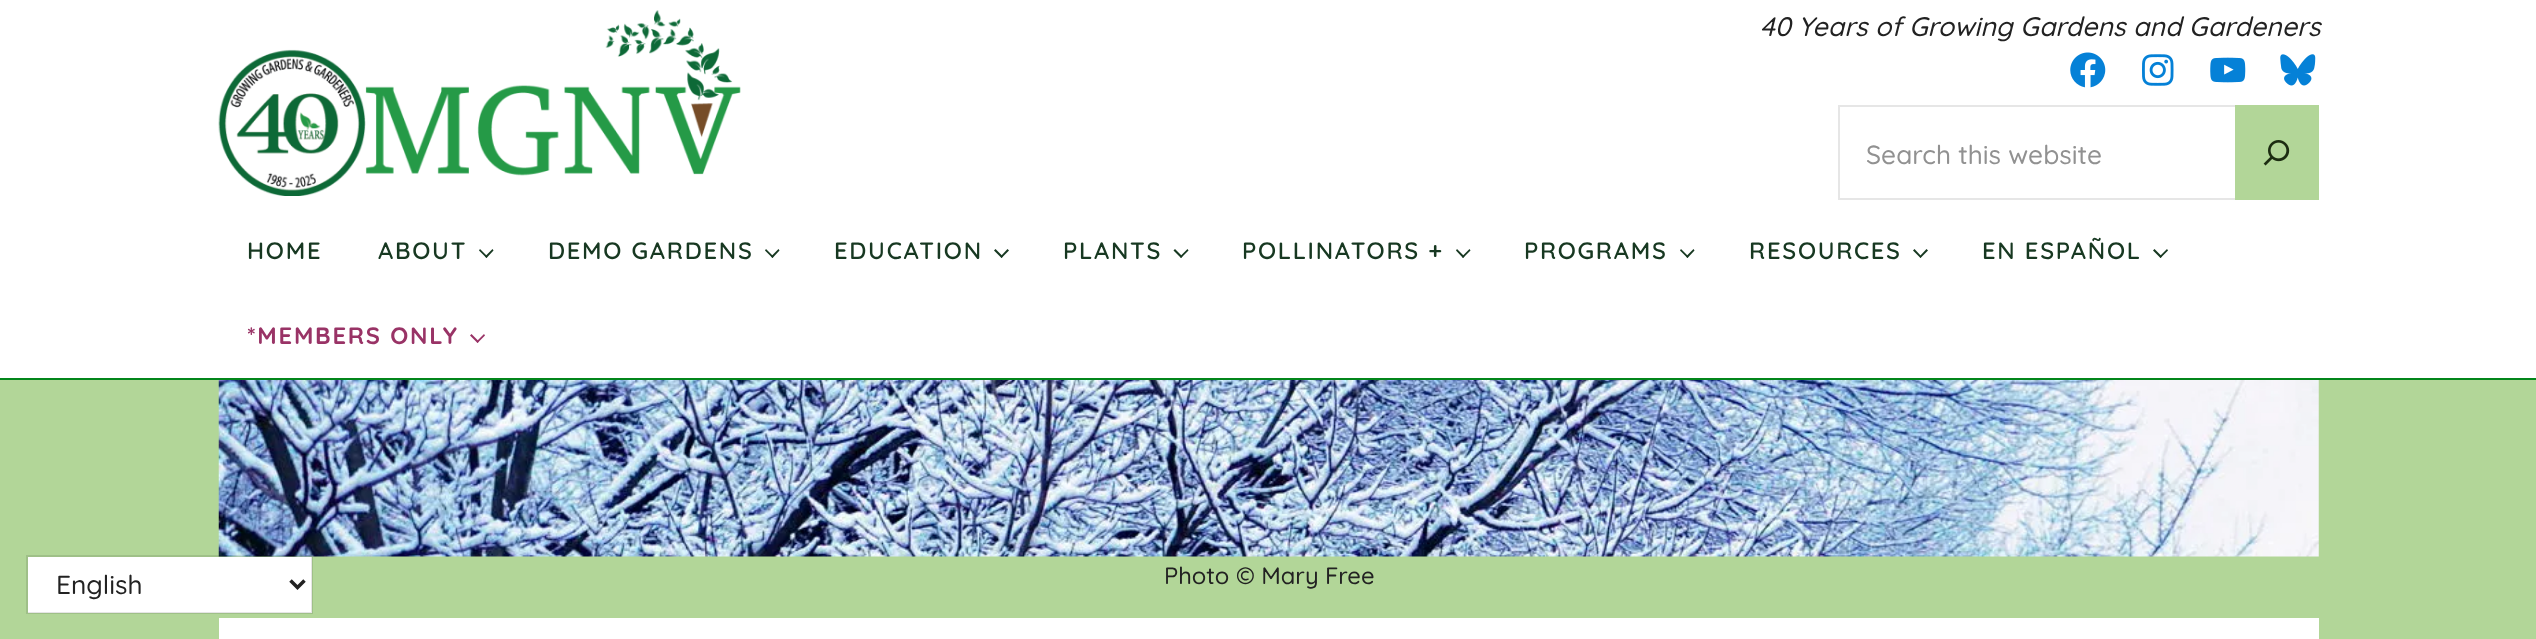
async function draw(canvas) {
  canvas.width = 2536
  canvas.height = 639
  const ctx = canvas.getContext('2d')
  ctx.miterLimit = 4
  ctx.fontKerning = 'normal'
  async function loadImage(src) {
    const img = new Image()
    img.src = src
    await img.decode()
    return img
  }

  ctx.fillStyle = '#fff'
  ctx.fillRect(0, 0, 2536, 639)
  ctx.fillStyle = '#b2d698'
  ctx.fillRect(0, 380, 2536, 259)
  ctx.fillStyle = '#fff'
  ctx.fillRect(28, 557, 284, 56)
  ctx.drawImage(await loadImage('image6.png'), 218, 380, 2101, 177)
  ctx.strokeStyle = '#0000001a'
  ctx.lineWidth = 2
  ctx.strokeRect(27, 556, 285, 57)
  ctx.beginPath()
  ctx.moveTo(290.5, 580.5)
  ctx.lineTo(297.5, 587.5)
  ctx.lineTo(304.5, 580.5)
  ctx.strokeStyle = '#222'
  ctx.lineWidth = 3.5
  ctx.stroke()
  ctx.font = '500 26.25px Quicksand'
  ctx.fillStyle = '#222'
  ctx.fillText('English', 56, 594)
  ctx.drawImage(await loadImage('image0.png'), 218, 10, 523, 186)
  ctx.font = 'italic 500 26.75px Quicksand'
  ctx.fillText('40 Years of Growing Gardens and Gardeners', 1760, 36)
  ctx.drawImage(await loadImage('image1.png'), 2070, 52, 36, 36)
  ctx.drawImage(await loadImage('image2.png'), 2142, 54, 32, 32)
  ctx.drawImage(await loadImage('image3.png'), 2210, 57, 36, 26)
  ctx.drawImage(await loadImage('image4.png'), 2280, 54, 36, 32)
  ctx.strokeStyle = '#e6e6e6'
  ctx.lineWidth = 2
  ctx.strokeRect(1839, 106, 409, 93)
  ctx.font = '500 26.25px Quicksand'
  ctx.fillStyle = '#919191'
  ctx.fillText('Search this website', 1866, 164)
  ctx.fillStyle = '#b2d698'
  ctx.fillRect(2235, 105, 84, 95)
  ctx.drawImage(await loadImage('image5.png'), 2263, 140, 27, 26)
  ctx.fillStyle = '#03861b'
  ctx.fillRect(0, 378, 2536, 2)
  ctx.letterSpacing = '1.75px'
  ctx.font = '600 23.75px Quicksand'
  ctx.fillStyle = '#173821'
  ctx.fillText('HOME', 247, 259)
  ctx.fillText('ABOUT', 378, 259)
  ctx.beginPath()
  ctx.moveTo(492.5, 249)
  ctx.lineTo(493.5, 250.5)
  ctx.lineTo(486.5, 258)
  ctx.lineTo(485, 256.5)
  ctx.closePath()
  ctx.fill()
  ctx.beginPath()
  ctx.moveTo(480, 249)
  ctx.lineTo(487.5, 256.5)
  ctx.lineTo(486.5, 258)
  ctx.lineTo(479, 250.5)
  ctx.closePath()
  ctx.fill()
  ctx.fillText('DEMO GARDENS', 548, 259)
  ctx.beginPath()
  ctx.moveTo(778.5, 249)
  ctx.lineTo(779.5, 250.5)
  ctx.lineTo(772.5, 258)
  ctx.lineTo(771, 256.5)
  ctx.closePath()
  ctx.fill()
  ctx.beginPath()
  ctx.moveTo(766, 249)
  ctx.lineTo(773.5, 256.5)
  ctx.lineTo(772.5, 258)
  ctx.lineTo(765, 250.5)
  ctx.closePath()
  ctx.fill()
  ctx.fillText('EDUCATION', 834, 259)
  ctx.beginPath()
  ctx.moveTo(1007.5, 249)
  ctx.lineTo(1009, 250.5)
  ctx.lineTo(1001.5, 258)
  ctx.lineTo(1000.5, 256.5)
  ctx.closePath()
  ctx.fill()
  ctx.beginPath()
  ctx.moveTo(995.5, 249)
  ctx.lineTo(1003, 256.5)
  ctx.lineTo(1001.5, 258)
  ctx.lineTo(994, 250.5)
  ctx.closePath()
  ctx.fill()
  ctx.fillText('PLANTS', 1063, 259)
  ctx.beginPath()
  ctx.moveTo(1187.5, 249)
  ctx.lineTo(1188.5, 250.5)
  ctx.lineTo(1181, 258)
  ctx.lineTo(1180, 256.5)
  ctx.closePath()
  ctx.fill()
  ctx.beginPath()
  ctx.moveTo(1175, 249)
  ctx.lineTo(1182.5, 256.5)
  ctx.lineTo(1181, 258)
  ctx.lineTo(1173.5, 250.5)
  ctx.closePath()
  ctx.fill()
  ctx.fillText('POLLINATORS +', 1242, 259)
  ctx.beginPath()
  ctx.moveTo(1469.5, 249)
  ctx.lineTo(1470.5, 250.5)
  ctx.lineTo(1463, 258)
  ctx.lineTo(1462, 256.5)
  ctx.closePath()
  ctx.fill()
  ctx.beginPath()
  ctx.moveTo(1457, 249)
  ctx.lineTo(1464.5, 256.5)
  ctx.lineTo(1463, 258)
  ctx.lineTo(1456, 250.5)
  ctx.closePath()
  ctx.fill()
  ctx.fillText('PROGRAMS', 1524, 259)
  ctx.beginPath()
  ctx.moveTo(1693.5, 249)
  ctx.lineTo(1694.5, 250.5)
  ctx.lineTo(1687.5, 258)
  ctx.lineTo(1686, 256.5)
  ctx.closePath()
  ctx.fill()
  ctx.beginPath()
  ctx.moveTo(1681, 249)
  ctx.lineTo(1688.5, 256.5)
  ctx.lineTo(1687.5, 258)
  ctx.lineTo(1680, 250.5)
  ctx.closePath()
  ctx.fill()
  ctx.fillText('RESOURCES', 1749, 259)
  ctx.beginPath()
  ctx.moveTo(1926.5, 249)
  ctx.lineTo(1928, 250.5)
  ctx.lineTo(1920.5, 258)
  ctx.lineTo(1919.5, 256.5)
  ctx.closePath()
  ctx.fill()
  ctx.beginPath()
  ctx.moveTo(1914.5, 249)
  ctx.lineTo(1921.5, 256.5)
  ctx.lineTo(1920.5, 258)
  ctx.lineTo(1913, 250.5)
  ctx.closePath()
  ctx.fill()
  ctx.fillText('EN ESPAÑOL', 1982, 259)
  ctx.beginPath()
  ctx.moveTo(2167, 249)
  ctx.lineTo(2168, 250.5)
  ctx.lineTo(2160.5, 258)
  ctx.lineTo(2159.5, 256.5)
  ctx.closePath()
  ctx.fill()
  ctx.beginPath()
  ctx.moveTo(2154.5, 249)
  ctx.lineTo(2162, 256.5)
  ctx.lineTo(2160.5, 258)
  ctx.lineTo(2153, 250.5)
  ctx.closePath()
  ctx.fill()
  ctx.font = 'bold 23.75px Quicksand'
  ctx.fillStyle = '#936'
  ctx.fillText('*MEMBERS ONLY', 247, 344)
  ctx.beginPath()
  ctx.moveTo(484, 334)
  ctx.lineTo(485, 335.5)
  ctx.lineTo(477.5, 343)
  ctx.lineTo(476.5, 341.5)
  ctx.closePath()
  ctx.fill()
  ctx.beginPath()
  ctx.moveTo(471.5, 334)
  ctx.lineTo(479, 341.5)
  ctx.lineTo(477.5, 343)
  ctx.lineTo(470, 335.5)
  ctx.closePath()
  ctx.fill()
  ctx.fillStyle = '#fff'
  ctx.fillRect(219, 618, 2100, 21)
  ctx.letterSpacing = '0px'
  ctx.font = '500 23.75px Quicksand'
  ctx.fillStyle = '#222'
  ctx.fillText('Photo © Mary Free', 1164, 584)
}

draw(document.querySelector('canvas'))
